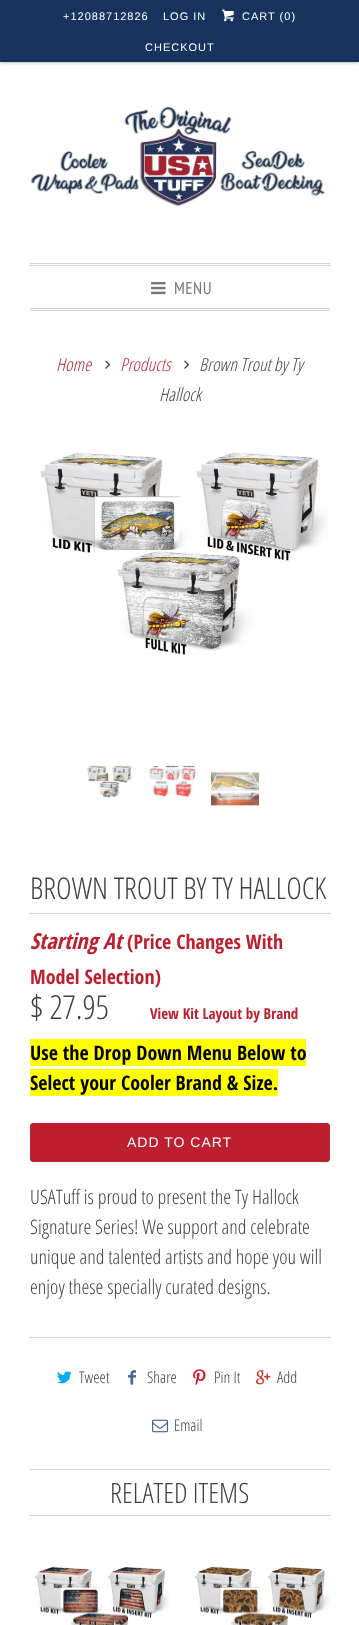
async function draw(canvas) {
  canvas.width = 359
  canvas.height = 1625
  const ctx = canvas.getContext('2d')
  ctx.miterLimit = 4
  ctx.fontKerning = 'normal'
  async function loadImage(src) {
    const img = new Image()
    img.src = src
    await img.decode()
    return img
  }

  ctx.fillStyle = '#fff'
  ctx.fillRect(0, 0, 359, 1625)
  ctx.fillStyle = '#00000040'
  ctx.filter = 'blur(1.5px)'
  ctx.beginPath()
  ctx.rect(0, 1, 359, 62)
  ctx.fill()
  ctx.filter = 'none'
  ctx.fillStyle = '#18335e'
  ctx.fillRect(0, 0, 359, 61)
  ctx.fillStyle = '#162e55'
  ctx.fillRect(0, 61, 359, 1)
  ctx.letterSpacing = '1px'
  ctx.font = '11px Liberation Sans'
  ctx.fillStyle = '#fff'
  ctx.fillText('+12088712826', 63, 20)
  ctx.fillText('LOG IN', 163, 20)
  ctx.drawImage(await loadImage('image0.png'), 222, 9, 12, 13)
  ctx.fillText('CART (0)', 242, 20)
  ctx.fillText('CHECKOUT', 145, 51)
  ctx.drawImage(await loadImage('image1.png'), 30, 106, 295, 101)
  ctx.fillStyle = '#d3d3d3'
  ctx.fillRect(30, 263, 300, 1)
  ctx.fillRect(30, 265, 300, 1)
  ctx.fillRect(30, 308, 300, 1)
  ctx.fillRect(30, 310, 300, 1)
  ctx.drawImage(await loadImage('image2.png'), 151, 282, 15, 13)
  ctx.letterSpacing = '0.5px'
  ctx.font = '17px PT Sans Narrow'
  ctx.fillStyle = '#777'
  ctx.fillText('MENU', 174, 294)
  ctx.letterSpacing = '0px'
  ctx.font = 'italic 300 18px Open Sans Condensed'
  ctx.fillStyle = '#bd1f2e'
  ctx.fillText('Home', 56, 371)
  ctx.drawImage(await loadImage('image3.png'), 105, 360, 5, 9)
  ctx.fillText('Products', 120, 371)
  ctx.drawImage(await loadImage('image3.png'), 184, 360, 5, 9)
  ctx.fillStyle = '#404040'
  ctx.fillText('Brown Trout by Ty', 199, 371)
  ctx.fillText('Hallock', 159, 401)
  ctx.drawImage(await loadImage('image4.png'), 40, 452, 288, 203)
  ctx.drawImage(await loadImage('image5.png'), 86, 765, 47, 33)
  ctx.drawImage(await loadImage('image6.png'), 148, 765, 48, 32)
  ctx.drawImage(await loadImage('image7.png'), 211, 771, 48, 36)
  ctx.fillStyle = '#d3d3d3'
  ctx.fillRect(30, 913, 300, 1)
  ctx.font = '300 30px Open Sans Condensed'
  ctx.fillStyle = '#404040'
  ctx.fillText('BROWN TROUT BY TY HALLOCK', 30, 899)
  ctx.font = 'italic bold 22px Open Sans Condensed'
  ctx.fillStyle = '#bd1f2e'
  ctx.fillText('Starting At', 30, 949)
  ctx.font = 'bold 20px Open Sans Condensed'
  ctx.fillText('(Price Changes With', 127, 949)
  ctx.fillText('Model Selection)', 30, 984)
  ctx.font = '300 33px Open Sans Condensed'
  ctx.fillStyle = '#404040'
  ctx.fillText('$ 27.95', 30, 1019)
  ctx.font = 'bold 15px Open Sans Condensed'
  ctx.fillStyle = '#bd1f2e'
  ctx.fillText('View Kit Layout by Brand', 150, 1019)
  ctx.fillStyle = '#ff0'
  ctx.fillRect(30, 1039, 276, 27)
  ctx.font = 'bold 20px Open Sans Condensed'
  ctx.fillStyle = '#000'
  ctx.fillText('Use the Drop Down Menu Below to', 30, 1060)
  ctx.fillStyle = '#ff0'
  ctx.fillRect(30, 1069, 248, 27)
  ctx.fillStyle = '#000'
  ctx.fillText('Select your Cooler Brand & Size.', 30, 1090)
  ctx.fillStyle = '#bd1f2e'
  ctx.beginPath()
  ctx.roundRect(30.5, 1123.5, 299, 38, 2.5)
  ctx.fill()
  ctx.strokeStyle = '#bd1f2e'
  ctx.stroke()
  ctx.letterSpacing = '1px'
  ctx.font = '14px Liberation Sans'
  ctx.fillStyle = '#fff'
  ctx.fillText('ADD TO CART', 127, 1147)
  ctx.letterSpacing = '0px'
  ctx.font = '300 20px Open Sans Condensed'
  ctx.fillStyle = '#404040'
  ctx.fillText('USATuff is proud to present the Ty Hallock', 30, 1204)
  ctx.fillText('Signature Series! We support and celebrate', 30, 1234)
  ctx.fillText('unique and talented artists and hope you will', 30, 1264)
  ctx.fillText('enjoy these specially curated designs.', 30, 1294)
  ctx.fillStyle = '#d3d3d3'
  ctx.fillRect(30, 1337, 300, 1)
  ctx.drawImage(await loadImage('image8.png'), 57, 1371, 15, 13)
  ctx.font = '300 16px Open Sans Condensed'
  ctx.fillStyle = '#404040'
  ctx.fillText('Tweet', 79, 1383)
  ctx.drawImage(await loadImage('image9.png'), 128, 1370, 8, 15)
  ctx.fillText('Share', 147, 1383)
  ctx.drawImage(await loadImage('image10.png'), 193, 1369, 13, 17)
  ctx.fillText('Pin It', 214, 1383)
  ctx.drawImage(await loadImage('image11.png'), 256, 1370, 15, 15)
  ctx.fillText('Add', 277, 1383)
  ctx.drawImage(await loadImage('image12.png'), 152, 1419, 16, 14)
  ctx.fillText('Email', 174, 1431)
  ctx.fillStyle = '#d3d3d3'
  ctx.fillRect(30, 1469, 300, 1)
  ctx.fillRect(30, 1515, 300, 1)
  ctx.font = '300 28px Open Sans Condensed'
  ctx.fillStyle = '#404040'
  ctx.fillText('RELATED ITEMS', 110, 1503)
  ctx.drawImage(await loadImage('image13.png'), 34, 1566, 135, 59)
  ctx.drawImage(await loadImage('image14.png'), 194, 1566, 136, 59)
}

draw(document.querySelector('canvas'))
